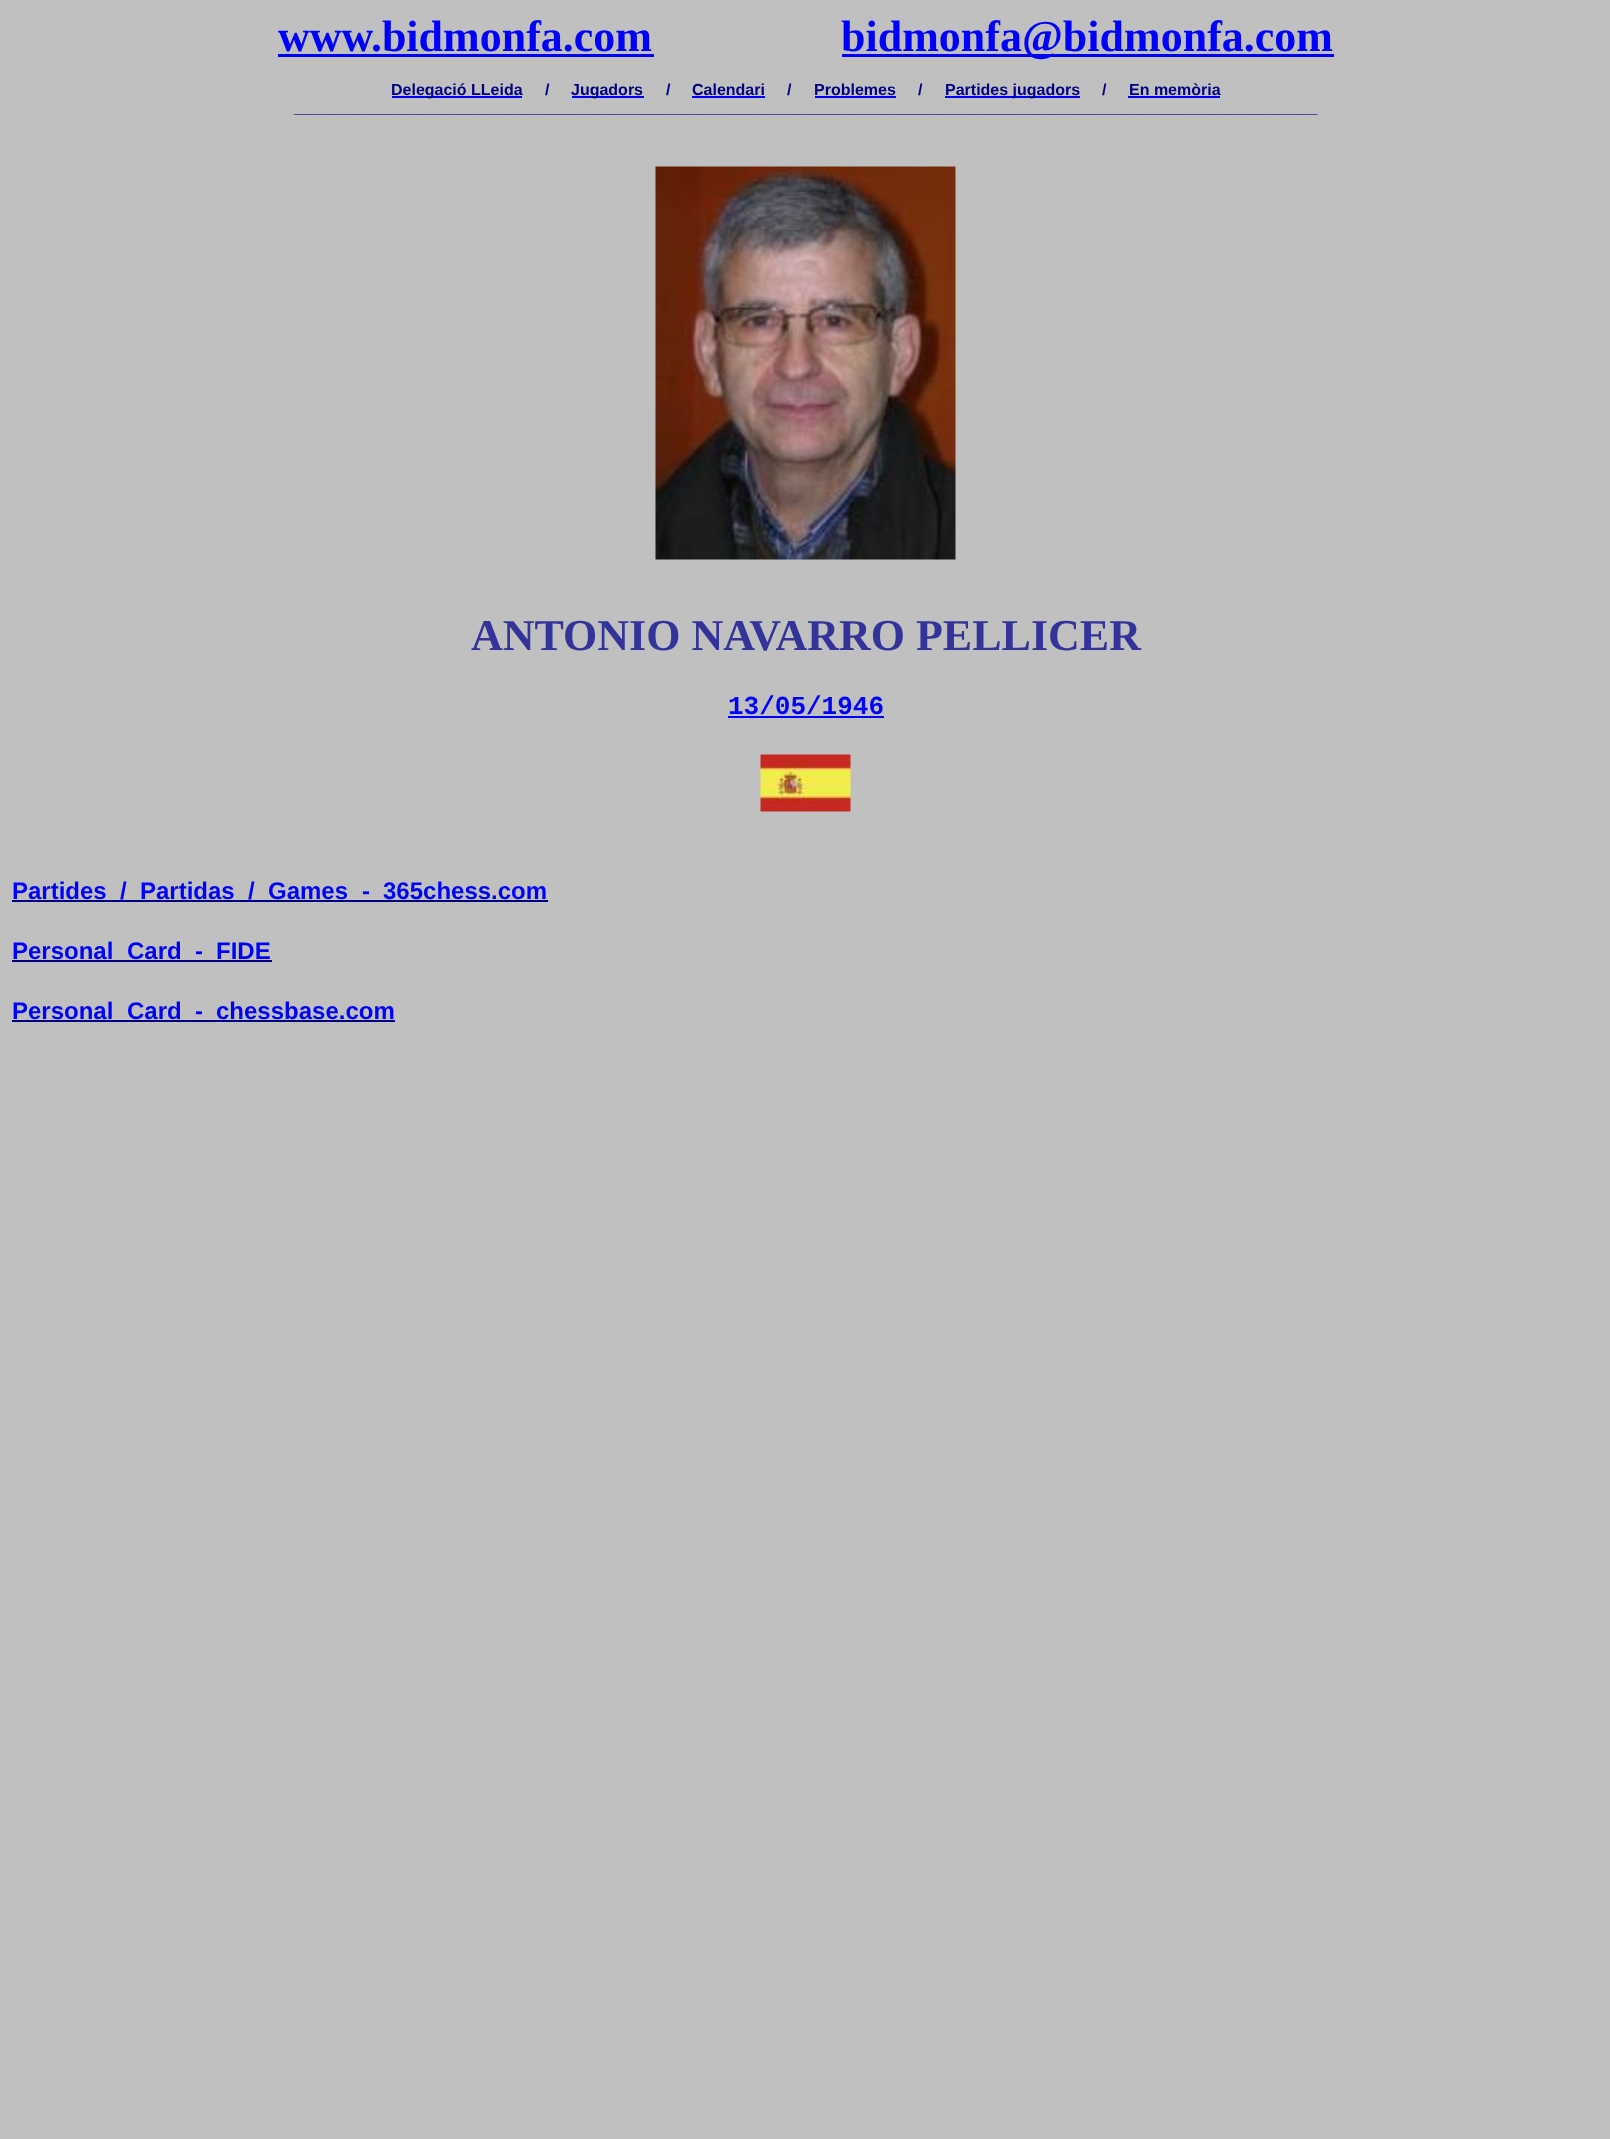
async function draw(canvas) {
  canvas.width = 1610
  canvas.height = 2139
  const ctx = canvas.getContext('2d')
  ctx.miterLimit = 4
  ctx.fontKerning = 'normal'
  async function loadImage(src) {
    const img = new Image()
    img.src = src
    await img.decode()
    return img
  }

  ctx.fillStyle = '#c0c0c0'
  ctx.fillRect(0, 0, 1610, 2139)
  ctx.font = 'bold 44px Liberation Serif'
  ctx.fillStyle = '#00f'
  ctx.fillText('www.bidmonfa.com', 278, 51)
  ctx.fillRect(278, 54, 376, 3)
  ctx.fillRect(842, 54, 492, 3)
  ctx.fillText('bidmonfa@bidmonfa.com', 841, 51)
  ctx.fillRect(392, 96, 130, 2)
  ctx.font = 'bold 16px Liberation Sans'
  ctx.fillStyle = '#000080'
  ctx.fillText('Delegació LLeida', 391, 95)
  ctx.fillText('/', 545, 95)
  ctx.fillStyle = '#00f'
  ctx.fillRect(572, 96, 72, 2)
  ctx.fillStyle = '#000080'
  ctx.fillText('Jugadors', 571, 95)
  ctx.fillText('/', 666, 95)
  ctx.fillText('Calendari', 692, 95)
  ctx.fillStyle = '#00f'
  ctx.fillRect(692, 96, 73, 2)
  ctx.fillStyle = '#000080'
  ctx.fillText('/', 787, 95)
  ctx.fillText('Problemes', 814, 95)
  ctx.fillStyle = '#00f'
  ctx.fillRect(815, 96, 81, 2)
  ctx.fillStyle = '#000080'
  ctx.fillText('/', 918, 95)
  ctx.fillStyle = '#00f'
  ctx.fillRect(945, 96, 135, 2)
  ctx.fillStyle = '#000080'
  ctx.fillText('Partides jugadors', 945, 95)
  ctx.fillText('/', 1102, 95)
  ctx.fillText('En memòria', 1129, 95)
  ctx.fillStyle = '#00f'
  ctx.fillRect(1128, 96, 92, 2)
  ctx.fillStyle = '#000080'
  ctx.fillText('___________________________________________________________________________________________________________________', 294, 113)
  ctx.drawImage(await loadImage('image0.png'), 655, 166, 301, 394)
  ctx.font = 'bold 44px Liberation Serif'
  ctx.fillStyle = '#339'
  ctx.fillText('ANTONIO NAVARRO PELLICER', 471, 650)
  ctx.font = 'bold 26px Liberation Mono'
  ctx.fillStyle = '#00f'
  ctx.fillText('13/05/1946', 728, 714)
  ctx.fillRect(728, 716, 156, 2)
  ctx.drawImage(await loadImage('image1.png'), 760, 754, 91, 58)
  ctx.font = 'bold 24px Liberation Sans'
  ctx.fillText('Partides', 12, 899)
  ctx.fillText('/', 120, 899)
  ctx.fillText('Partidas', 140, 899)
  ctx.fillText('/', 248, 899)
  ctx.fillText('Games', 268, 899)
  ctx.fillText('-', 362, 899)
  ctx.fillStyle = '#000080'
  ctx.fillRect(12, 900, 536, 2)
  ctx.fillStyle = '#00f'
  ctx.fillText('365chess.com', 383, 899)
  ctx.fillText('Personal', 12, 959)
  ctx.fillText('Card', 127, 959)
  ctx.fillText('-', 195, 959)
  ctx.fillStyle = '#000080'
  ctx.fillRect(12, 960, 260, 2)
  ctx.fillStyle = '#00f'
  ctx.fillText('FIDE', 216, 959)
  ctx.fillText('Personal', 12, 1019)
  ctx.fillText('Card', 127, 1019)
  ctx.fillText('-', 195, 1019)
  ctx.fillStyle = '#000080'
  ctx.fillRect(12, 1020, 383, 2)
  ctx.fillStyle = '#00f'
  ctx.fillText('chessbase.com', 216, 1019)
}

draw(document.querySelector('canvas'))
